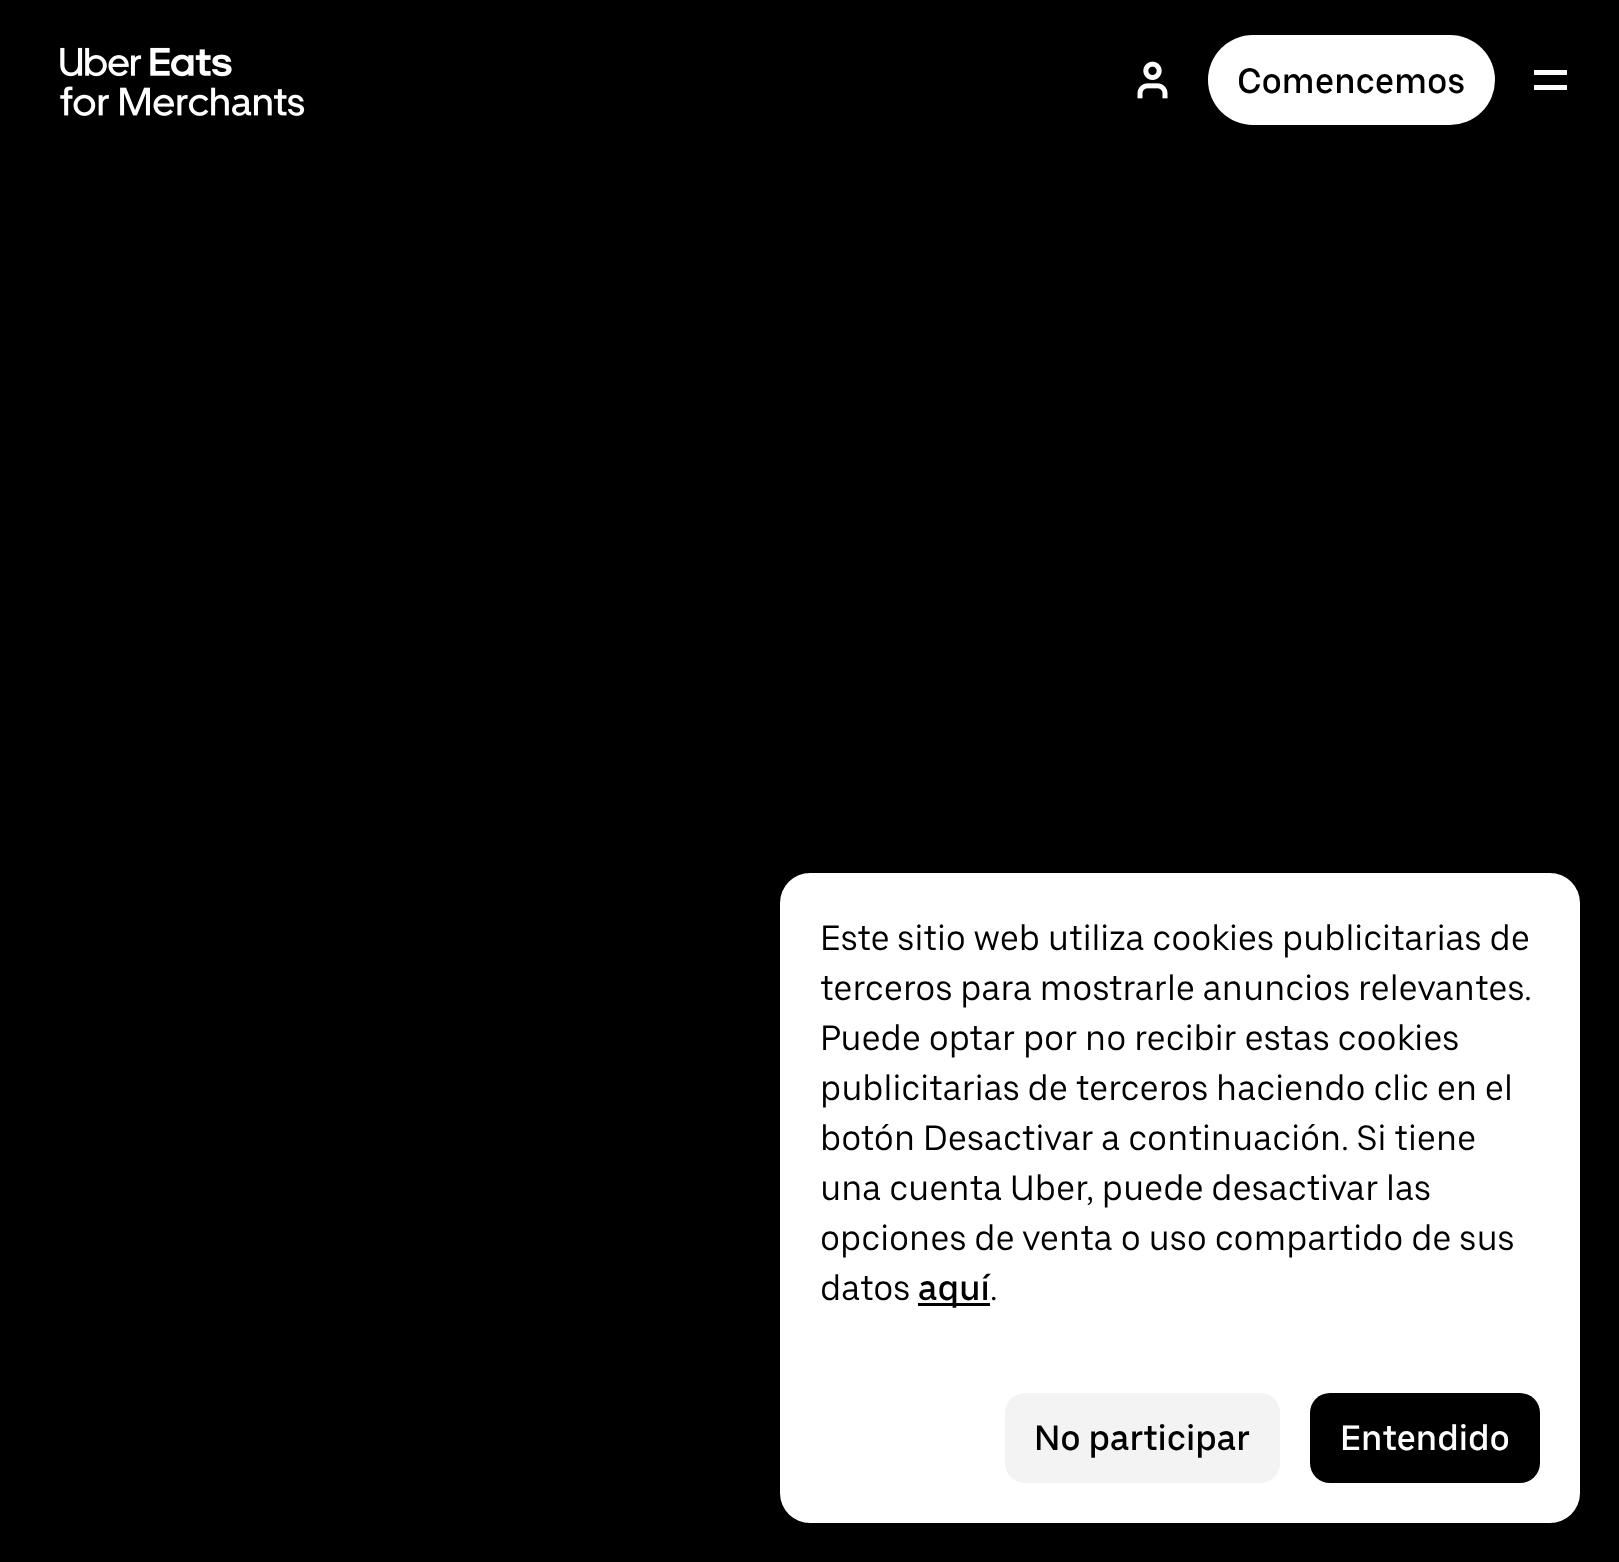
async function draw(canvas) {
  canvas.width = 1619
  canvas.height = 1562
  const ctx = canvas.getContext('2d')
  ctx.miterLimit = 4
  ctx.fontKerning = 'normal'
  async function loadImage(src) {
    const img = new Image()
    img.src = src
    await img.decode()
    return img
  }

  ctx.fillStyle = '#000'
  ctx.fillRect(0, 0, 1619, 1562)
  ctx.drawImage(await loadImage('image0.png'), 60, 47, 245, 69)
  ctx.drawImage(await loadImage('image1.png'), 1137, 61, 31, 38)
  ctx.fillStyle = '#fff'
  ctx.beginPath()
  ctx.roundRect(1208, 35, 287, 90, 45)
  ctx.fill()
  ctx.font = '500 35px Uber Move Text'
  ctx.fillStyle = '#000'
  ctx.fillText('Comencemos', 1237, 93)
  ctx.fillStyle = '#fff'
  ctx.fillRect(1534, 70, 33, 5)
  ctx.fillRect(1534, 85, 33, 5)
  ctx.beginPath()
  ctx.roundRect(780, 873, 800, 650, 30)
  ctx.fill()
  ctx.font = '35px Uber Move Text'
  ctx.fillStyle = '#000'
  ctx.fillText('Este sitio web utiliza cookies publicitarias de', 820, 950)
  ctx.fillText('terceros para mostrarle anuncios relevantes.', 820, 1000)
  ctx.fillText('Puede optar por no recibir estas cookies', 820, 1050)
  ctx.fillText('publicitarias de terceros haciendo clic en el', 820, 1100)
  ctx.fillText('botón Desactivar a continuación. Si tiene', 820, 1150)
  ctx.fillText('una cuenta Uber, puede desactivar las', 820, 1200)
  ctx.fillText('opciones de venta o uso compartido de sus', 820, 1250)
  ctx.fillText('datos', 820, 1300)
  ctx.fillRect(918, 1303, 72, 3)
  ctx.font = '500 35px Uber Move Text'
  ctx.fillText('aquí', 918, 1300)
  ctx.font = '35px Uber Move Text'
  ctx.fillText('.', 990, 1300)
  ctx.fillStyle = '#f3f3f3'
  ctx.beginPath()
  ctx.roundRect(1005, 1393, 275, 90, 20)
  ctx.fill()
  ctx.font = '500 35px Uber Move Text'
  ctx.fillStyle = '#000'
  ctx.fillText('No participar', 1034, 1450)
  ctx.beginPath()
  ctx.roundRect(1310, 1393, 230, 90, 20)
  ctx.fill()
  ctx.fillStyle = '#fff'
  ctx.fillText('Entendido', 1340, 1450)
}

draw(document.querySelector('canvas'))
